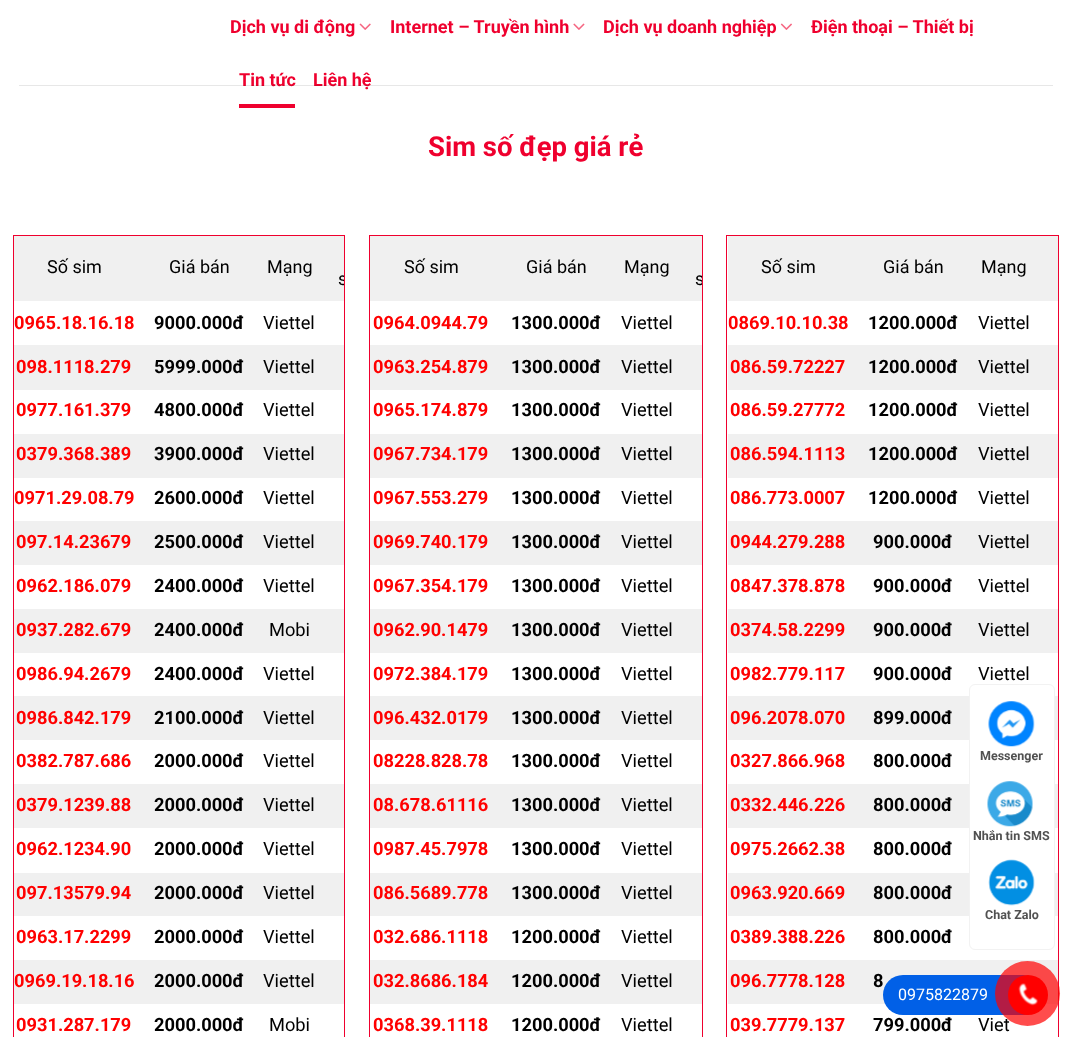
async function draw(canvas) {
  canvas.width = 1071
  canvas.height = 1037
  const ctx = canvas.getContext('2d')
  ctx.miterLimit = 4
  ctx.fontKerning = 'normal'
  async function loadImage(src) {
    const img = new Image()
    img.src = src
    await img.decode()
    return img
  }

  ctx.fillStyle = '#fff'
  ctx.fillRect(0, 0, 1071, 1037)
  ctx.font = 'bold 18px Roboto'
  ctx.fillStyle = '#ef002e'
  ctx.fillText('Dịch vụ di động', 230, 33)
  ctx.drawImage(await loadImage('image0.png'), 359, 23, 12, 7)
  ctx.fillText('Internet – Truyền hình', 390, 33)
  ctx.drawImage(await loadImage('image1.png'), 573, 23, 12, 7)
  ctx.fillText('Dịch vụ doanh nghiệp', 603, 33)
  ctx.drawImage(await loadImage('image2.png'), 780, 23, 12, 7)
  ctx.fillText('Điện thoại – Thiết bị', 811, 33)
  ctx.fillText('Tin tức', 239, 86)
  ctx.fillRect(239, 104, 56, 4)
  ctx.fillText('Liên hệ', 313, 86)
  ctx.fillStyle = '#1515151a'
  ctx.fillRect(19, 85, 1034, 1)
  ctx.font = 'bold 27.5px Roboto'
  ctx.fillStyle = '#ef002e'
  ctx.fillText('Sim số đẹp giá rẻ', 428, 156)
  ctx.fillStyle = '#f0f0f0'
  ctx.fillRect(14, 236, 330, 65)
  ctx.save()
  ctx.beginPath()
  ctx.rect(13, 235, 332, 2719)
  ctx.clip()
  ctx.font = '18px Roboto'
  ctx.fillStyle = '#000'
  ctx.fillText('s', 338, 285)
  ctx.restore()
  ctx.fillRect(14, 345, 330, 45)
  ctx.fillRect(14, 434, 330, 44)
  ctx.fillRect(14, 521, 330, 44)
  ctx.fillRect(14, 609, 330, 44)
  ctx.fillRect(14, 696, 330, 44)
  ctx.fillRect(14, 784, 330, 44)
  ctx.fillRect(14, 873, 330, 43)
  ctx.fillRect(14, 960, 330, 44)
  ctx.strokeStyle = '#ef002e'
  ctx.strokeRect(13.5, 235.5, 331, 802)
  ctx.font = '18px Roboto'
  ctx.fillStyle = '#000'
  ctx.fillText('Số sim', 47, 273)
  ctx.fillText('Giá bán', 169, 273)
  ctx.fillText('Mạng', 267, 273)
  ctx.font = 'bold 18.25px Roboto'
  ctx.fillStyle = '#f00'
  ctx.fillText('0965.18.16.18', 14, 329)
  ctx.fillStyle = '#000'
  ctx.fillText('9000.000đ', 154, 329)
  ctx.font = '18.25px Roboto'
  ctx.fillText('Viettel', 263, 329)
  ctx.font = 'bold 18.25px Roboto'
  ctx.fillStyle = '#f00'
  ctx.fillText('098.1118.279', 16, 373)
  ctx.fillStyle = '#000'
  ctx.fillText('5999.000đ', 154, 373)
  ctx.font = '18.25px Roboto'
  ctx.fillText('Viettel', 263, 373)
  ctx.font = 'bold 18.25px Roboto'
  ctx.fillStyle = '#f00'
  ctx.fillText('0977.161.379', 16, 416)
  ctx.fillStyle = '#000'
  ctx.fillText('4800.000đ', 154, 416)
  ctx.font = '18.25px Roboto'
  ctx.fillText('Viettel', 263, 416)
  ctx.font = 'bold 18.25px Roboto'
  ctx.fillStyle = '#f00'
  ctx.fillText('0379.368.389', 16, 460)
  ctx.fillStyle = '#000'
  ctx.fillText('3900.000đ', 154, 460)
  ctx.font = '18.25px Roboto'
  ctx.fillText('Viettel', 263, 460)
  ctx.font = 'bold 18.25px Roboto'
  ctx.fillStyle = '#f00'
  ctx.fillText('0971.29.08.79', 14, 504)
  ctx.fillStyle = '#000'
  ctx.fillText('2600.000đ', 154, 504)
  ctx.font = '18.25px Roboto'
  ctx.fillText('Viettel', 263, 504)
  ctx.font = 'bold 18.25px Roboto'
  ctx.fillStyle = '#f00'
  ctx.fillText('097.14.23679', 16, 548)
  ctx.fillStyle = '#000'
  ctx.fillText('2500.000đ', 154, 548)
  ctx.font = '18.25px Roboto'
  ctx.fillText('Viettel', 263, 548)
  ctx.font = 'bold 18.25px Roboto'
  ctx.fillStyle = '#f00'
  ctx.fillText('0962.186.079', 16, 592)
  ctx.fillStyle = '#000'
  ctx.fillText('2400.000đ', 154, 592)
  ctx.font = '18.25px Roboto'
  ctx.fillText('Viettel', 263, 592)
  ctx.font = 'bold 18.25px Roboto'
  ctx.fillStyle = '#f00'
  ctx.fillText('0937.282.679', 16, 636)
  ctx.fillStyle = '#000'
  ctx.fillText('2400.000đ', 154, 636)
  ctx.font = '18.25px Roboto'
  ctx.fillText('Mobi', 269, 636)
  ctx.font = 'bold 18.25px Roboto'
  ctx.fillStyle = '#f00'
  ctx.fillText('0986.94.2679', 16, 680)
  ctx.fillStyle = '#000'
  ctx.fillText('2400.000đ', 154, 680)
  ctx.font = '18.25px Roboto'
  ctx.fillText('Viettel', 263, 680)
  ctx.font = 'bold 18.25px Roboto'
  ctx.fillStyle = '#f00'
  ctx.fillText('0986.842.179', 16, 724)
  ctx.fillStyle = '#000'
  ctx.fillText('2100.000đ', 154, 724)
  ctx.font = '18.25px Roboto'
  ctx.fillText('Viettel', 263, 724)
  ctx.font = 'bold 18.25px Roboto'
  ctx.fillStyle = '#f00'
  ctx.fillText('0382.787.686', 16, 767)
  ctx.fillStyle = '#000'
  ctx.fillText('2000.000đ', 154, 767)
  ctx.font = '18.25px Roboto'
  ctx.fillText('Viettel', 263, 767)
  ctx.font = 'bold 18.25px Roboto'
  ctx.fillStyle = '#f00'
  ctx.fillText('0379.1239.88', 16, 811)
  ctx.fillStyle = '#000'
  ctx.fillText('2000.000đ', 154, 811)
  ctx.font = '18.25px Roboto'
  ctx.fillText('Viettel', 263, 811)
  ctx.font = 'bold 18.25px Roboto'
  ctx.fillStyle = '#f00'
  ctx.fillText('0962.1234.90', 16, 855)
  ctx.fillStyle = '#000'
  ctx.fillText('2000.000đ', 154, 855)
  ctx.font = '18.25px Roboto'
  ctx.fillText('Viettel', 263, 855)
  ctx.font = 'bold 18.25px Roboto'
  ctx.fillStyle = '#f00'
  ctx.fillText('097.13579.94', 16, 899)
  ctx.fillStyle = '#000'
  ctx.fillText('2000.000đ', 154, 899)
  ctx.font = '18.25px Roboto'
  ctx.fillText('Viettel', 263, 899)
  ctx.font = 'bold 18.25px Roboto'
  ctx.fillStyle = '#f00'
  ctx.fillText('0963.17.2299', 16, 943)
  ctx.fillStyle = '#000'
  ctx.fillText('2000.000đ', 154, 943)
  ctx.font = '18.25px Roboto'
  ctx.fillText('Viettel', 263, 943)
  ctx.font = 'bold 18.25px Roboto'
  ctx.fillStyle = '#f00'
  ctx.fillText('0969.19.18.16', 14, 987)
  ctx.fillStyle = '#000'
  ctx.fillText('2000.000đ', 154, 987)
  ctx.font = '18.25px Roboto'
  ctx.fillText('Viettel', 263, 987)
  ctx.font = 'bold 18.25px Roboto'
  ctx.fillStyle = '#f00'
  ctx.fillText('0931.287.179', 16, 1031)
  ctx.fillStyle = '#000'
  ctx.fillText('2000.000đ', 154, 1031)
  ctx.font = '18.25px Roboto'
  ctx.fillText('Mobi', 269, 1031)
  ctx.fillStyle = '#f0f0f0'
  ctx.fillRect(370, 236, 332, 65)
  ctx.save()
  ctx.beginPath()
  ctx.rect(369, 235, 334, 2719)
  ctx.clip()
  ctx.font = '18px Roboto'
  ctx.fillStyle = '#000'
  ctx.fillText('s', 695, 285)
  ctx.restore()
  ctx.fillRect(370, 345, 332, 45)
  ctx.fillRect(370, 434, 332, 44)
  ctx.fillRect(370, 521, 332, 44)
  ctx.fillRect(370, 609, 332, 44)
  ctx.fillRect(370, 696, 332, 44)
  ctx.fillRect(370, 784, 332, 44)
  ctx.fillRect(370, 873, 332, 43)
  ctx.fillRect(370, 960, 332, 44)
  ctx.strokeRect(369.5, 235.5, 333, 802)
  ctx.font = '18px Roboto'
  ctx.fillStyle = '#000'
  ctx.fillText('Số sim', 404, 273)
  ctx.fillText('Giá bán', 526, 273)
  ctx.fillText('Mạng', 624, 273)
  ctx.font = 'bold 18.25px Roboto'
  ctx.fillStyle = '#f00'
  ctx.fillText('0964.0944.79', 373, 329)
  ctx.fillStyle = '#000'
  ctx.fillText('1300.000đ', 511, 329)
  ctx.font = '18.25px Roboto'
  ctx.fillText('Viettel', 621, 329)
  ctx.font = 'bold 18.25px Roboto'
  ctx.fillStyle = '#f00'
  ctx.fillText('0963.254.879', 373, 373)
  ctx.fillStyle = '#000'
  ctx.fillText('1300.000đ', 511, 373)
  ctx.font = '18.25px Roboto'
  ctx.fillText('Viettel', 621, 373)
  ctx.font = 'bold 18.25px Roboto'
  ctx.fillStyle = '#f00'
  ctx.fillText('0965.174.879', 373, 416)
  ctx.fillStyle = '#000'
  ctx.fillText('1300.000đ', 511, 416)
  ctx.font = '18.25px Roboto'
  ctx.fillText('Viettel', 621, 416)
  ctx.font = 'bold 18.25px Roboto'
  ctx.fillStyle = '#f00'
  ctx.fillText('0967.734.179', 373, 460)
  ctx.fillStyle = '#000'
  ctx.fillText('1300.000đ', 511, 460)
  ctx.font = '18.25px Roboto'
  ctx.fillText('Viettel', 621, 460)
  ctx.font = 'bold 18.25px Roboto'
  ctx.fillStyle = '#f00'
  ctx.fillText('0967.553.279', 373, 504)
  ctx.fillStyle = '#000'
  ctx.fillText('1300.000đ', 511, 504)
  ctx.font = '18.25px Roboto'
  ctx.fillText('Viettel', 621, 504)
  ctx.font = 'bold 18.25px Roboto'
  ctx.fillStyle = '#f00'
  ctx.fillText('0969.740.179', 373, 548)
  ctx.fillStyle = '#000'
  ctx.fillText('1300.000đ', 511, 548)
  ctx.font = '18.25px Roboto'
  ctx.fillText('Viettel', 621, 548)
  ctx.font = 'bold 18.25px Roboto'
  ctx.fillStyle = '#f00'
  ctx.fillText('0967.354.179', 373, 592)
  ctx.fillStyle = '#000'
  ctx.fillText('1300.000đ', 511, 592)
  ctx.font = '18.25px Roboto'
  ctx.fillText('Viettel', 621, 592)
  ctx.font = 'bold 18.25px Roboto'
  ctx.fillStyle = '#f00'
  ctx.fillText('0962.90.1479', 373, 636)
  ctx.fillStyle = '#000'
  ctx.fillText('1300.000đ', 511, 636)
  ctx.font = '18.25px Roboto'
  ctx.fillText('Viettel', 621, 636)
  ctx.font = 'bold 18.25px Roboto'
  ctx.fillStyle = '#f00'
  ctx.fillText('0972.384.179', 373, 680)
  ctx.fillStyle = '#000'
  ctx.fillText('1300.000đ', 511, 680)
  ctx.font = '18.25px Roboto'
  ctx.fillText('Viettel', 621, 680)
  ctx.font = 'bold 18.25px Roboto'
  ctx.fillStyle = '#f00'
  ctx.fillText('096.432.0179', 373, 724)
  ctx.fillStyle = '#000'
  ctx.fillText('1300.000đ', 511, 724)
  ctx.font = '18.25px Roboto'
  ctx.fillText('Viettel', 621, 724)
  ctx.font = 'bold 18.25px Roboto'
  ctx.fillStyle = '#f00'
  ctx.fillText('08228.828.78', 373, 767)
  ctx.fillStyle = '#000'
  ctx.fillText('1300.000đ', 511, 767)
  ctx.font = '18.25px Roboto'
  ctx.fillText('Viettel', 621, 767)
  ctx.font = 'bold 18.25px Roboto'
  ctx.fillStyle = '#f00'
  ctx.fillText('08.678.61116', 373, 811)
  ctx.fillStyle = '#000'
  ctx.fillText('1300.000đ', 511, 811)
  ctx.font = '18.25px Roboto'
  ctx.fillText('Viettel', 621, 811)
  ctx.font = 'bold 18.25px Roboto'
  ctx.fillStyle = '#f00'
  ctx.fillText('0987.45.7978', 373, 855)
  ctx.fillStyle = '#000'
  ctx.fillText('1300.000đ', 511, 855)
  ctx.font = '18.25px Roboto'
  ctx.fillText('Viettel', 621, 855)
  ctx.font = 'bold 18.25px Roboto'
  ctx.fillStyle = '#f00'
  ctx.fillText('086.5689.778', 373, 899)
  ctx.fillStyle = '#000'
  ctx.fillText('1300.000đ', 511, 899)
  ctx.font = '18.25px Roboto'
  ctx.fillText('Viettel', 621, 899)
  ctx.font = 'bold 18.25px Roboto'
  ctx.fillStyle = '#f00'
  ctx.fillText('032.686.1118', 373, 943)
  ctx.fillStyle = '#000'
  ctx.fillText('1200.000đ', 511, 943)
  ctx.font = '18.25px Roboto'
  ctx.fillText('Viettel', 621, 943)
  ctx.font = 'bold 18.25px Roboto'
  ctx.fillStyle = '#f00'
  ctx.fillText('032.8686.184', 373, 987)
  ctx.fillStyle = '#000'
  ctx.fillText('1200.000đ', 511, 987)
  ctx.font = '18.25px Roboto'
  ctx.fillText('Viettel', 621, 987)
  ctx.font = 'bold 18.25px Roboto'
  ctx.fillStyle = '#f00'
  ctx.fillText('0368.39.1118', 373, 1031)
  ctx.fillStyle = '#000'
  ctx.fillText('1200.000đ', 511, 1031)
  ctx.font = '18.25px Roboto'
  ctx.fillText('Viettel', 621, 1031)
  ctx.fillStyle = '#f0f0f0'
  ctx.fillRect(728, 236, 330, 65)
  ctx.fillRect(728, 345, 330, 45)
  ctx.fillRect(728, 434, 330, 44)
  ctx.fillRect(728, 521, 330, 44)
  ctx.fillRect(728, 609, 330, 44)
  ctx.fillRect(728, 696, 330, 44)
  ctx.fillRect(728, 784, 330, 44)
  ctx.fillRect(728, 873, 330, 43)
  ctx.fillRect(728, 960, 330, 44)
  ctx.strokeRect(726.5, 235.5, 332, 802)
  ctx.font = '18px Roboto'
  ctx.fillStyle = '#000'
  ctx.fillText('Số sim', 761, 273)
  ctx.fillText('Giá bán', 883, 273)
  ctx.fillText('Mạng', 981, 273)
  ctx.font = 'bold 18.25px Roboto'
  ctx.fillStyle = '#f00'
  ctx.fillText('0869.10.10.38', 728, 329)
  ctx.fillStyle = '#000'
  ctx.fillText('1200.000đ', 868, 329)
  ctx.font = '18.25px Roboto'
  ctx.fillText('Viettel', 978, 329)
  ctx.font = 'bold 18.25px Roboto'
  ctx.fillStyle = '#f00'
  ctx.fillText('086.59.72227', 730, 373)
  ctx.fillStyle = '#000'
  ctx.fillText('1200.000đ', 868, 373)
  ctx.font = '18.25px Roboto'
  ctx.fillText('Viettel', 978, 373)
  ctx.font = 'bold 18.25px Roboto'
  ctx.fillStyle = '#f00'
  ctx.fillText('086.59.27772', 730, 416)
  ctx.fillStyle = '#000'
  ctx.fillText('1200.000đ', 868, 416)
  ctx.font = '18.25px Roboto'
  ctx.fillText('Viettel', 978, 416)
  ctx.font = 'bold 18.25px Roboto'
  ctx.fillStyle = '#f00'
  ctx.fillText('086.594.1113', 730, 460)
  ctx.fillStyle = '#000'
  ctx.fillText('1200.000đ', 868, 460)
  ctx.font = '18.25px Roboto'
  ctx.fillText('Viettel', 978, 460)
  ctx.font = 'bold 18.25px Roboto'
  ctx.fillStyle = '#f00'
  ctx.fillText('086.773.0007', 730, 504)
  ctx.fillStyle = '#000'
  ctx.fillText('1200.000đ', 868, 504)
  ctx.font = '18.25px Roboto'
  ctx.fillText('Viettel', 978, 504)
  ctx.font = 'bold 18.25px Roboto'
  ctx.fillStyle = '#f00'
  ctx.fillText('0944.279.288', 730, 548)
  ctx.fillStyle = '#000'
  ctx.fillText('900.000đ', 873, 548)
  ctx.font = '18.25px Roboto'
  ctx.fillText('Viettel', 978, 548)
  ctx.font = 'bold 18.25px Roboto'
  ctx.fillStyle = '#f00'
  ctx.fillText('0847.378.878', 730, 592)
  ctx.fillStyle = '#000'
  ctx.fillText('900.000đ', 873, 592)
  ctx.font = '18.25px Roboto'
  ctx.fillText('Viettel', 978, 592)
  ctx.font = 'bold 18.25px Roboto'
  ctx.fillStyle = '#f00'
  ctx.fillText('0374.58.2299', 730, 636)
  ctx.fillStyle = '#000'
  ctx.fillText('900.000đ', 873, 636)
  ctx.font = '18.25px Roboto'
  ctx.fillText('Viettel', 978, 636)
  ctx.font = 'bold 18.25px Roboto'
  ctx.fillStyle = '#f00'
  ctx.fillText('0982.779.117', 730, 680)
  ctx.fillStyle = '#000'
  ctx.fillText('900.000đ', 873, 680)
  ctx.font = '18.25px Roboto'
  ctx.fillText('Viettel', 978, 680)
  ctx.font = 'bold 18.25px Roboto'
  ctx.fillStyle = '#f00'
  ctx.fillText('096.2078.070', 730, 724)
  ctx.fillStyle = '#000'
  ctx.fillText('899.000đ', 873, 724)
  ctx.fillStyle = '#f00'
  ctx.fillText('0327.866.968', 730, 767)
  ctx.fillStyle = '#000'
  ctx.fillText('800.000đ', 873, 767)
  ctx.fillStyle = '#f00'
  ctx.fillText('0332.446.226', 730, 811)
  ctx.fillStyle = '#000'
  ctx.fillText('800.000đ', 873, 811)
  ctx.fillStyle = '#f00'
  ctx.fillText('0975.2662.38', 730, 855)
  ctx.fillStyle = '#000'
  ctx.fillText('800.000đ', 873, 855)
  ctx.fillStyle = '#f00'
  ctx.fillText('0963.920.669', 730, 899)
  ctx.fillStyle = '#000'
  ctx.fillText('800.000đ', 873, 899)
  ctx.fillStyle = '#f00'
  ctx.fillText('0389.388.226', 730, 943)
  ctx.fillStyle = '#000'
  ctx.fillText('800.000đ', 873, 943)
  ctx.fillStyle = '#f00'
  ctx.fillText('096.7778.128', 730, 987)
  ctx.fillStyle = '#000'
  ctx.fillText('8', 873, 987)
  ctx.fillStyle = '#f00'
  ctx.fillText('039.7779.137', 730, 1031)
  ctx.fillStyle = '#000'
  ctx.fillText('799.000đ', 873, 1031)
  ctx.font = '18.25px Roboto'
  ctx.fillText('Viet', 978, 1031)
  ctx.fillStyle = '#fff'
  ctx.beginPath()
  ctx.roundRect(969.5, 684.5, 85, 265, 5.5)
  ctx.fill()
  ctx.strokeStyle = '#f2f2f2'
  ctx.stroke()
  ctx.drawImage(await loadImage('image3.png'), 988, 701, 47, 46)
  ctx.font = 'bold 12.5px Roboto'
  ctx.fillStyle = '#515151'
  ctx.fillText('Messenger', 980, 760)
  ctx.drawImage(await loadImage('image4.png'), 987, 781, 46, 46)
  ctx.fillText('Nhắn tin SMS', 973, 840)
  ctx.drawImage(await loadImage('image5.png'), 988, 859, 47, 47)
  ctx.fillText('Chat Zalo', 985, 919)
  ctx.fillStyle = '#0160e7'
  ctx.beginPath()
  ctx.roundRect(883, 975, 160, 40, 20)
  ctx.fill()
  ctx.font = '16px Roboto'
  ctx.fillStyle = '#fff'
  ctx.fillText('0975822879', 898, 1000)
  ctx.fillStyle = '#ff0000b3'
  ctx.beginPath()
  ctx.arc(1027.5, 993.5, 32.5, 0, 2 * Math.PI)
  ctx.fill()
  ctx.fillStyle = '#f00'
  ctx.beginPath()
  ctx.arc(1028, 995, 20, 0, 2 * Math.PI)
  ctx.fill()
  ctx.drawImage(await loadImage('image6.png'), 1018, 983, 20, 23)
}

draw(document.querySelector('canvas'))
